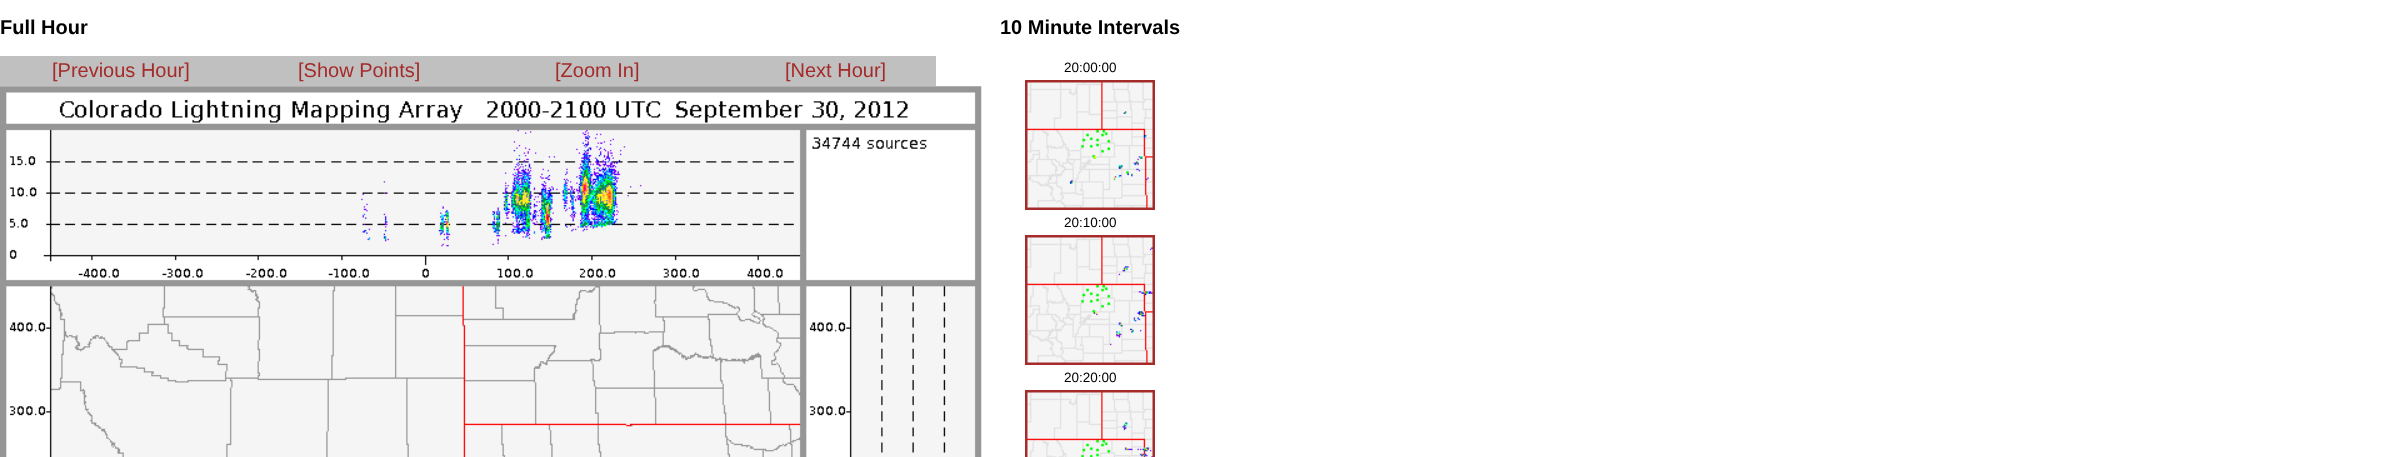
async function draw(canvas) {
  canvas.width = 2394
  canvas.height = 457
  const ctx = canvas.getContext('2d')
  ctx.miterLimit = 4
  ctx.fontKerning = 'normal'
  async function loadImage(src) {
    const img = new Image()
    img.src = src
    await img.decode()
    return img
  }

  ctx.fillStyle = '#fff'
  ctx.fillRect(0, 0, 2394, 457)
  ctx.font = 'bold 20px Liberation Sans'
  ctx.fillStyle = '#000'
  ctx.fillText('Full Hour', 0, 34)
  ctx.fillStyle = '#c0c0c0'
  ctx.fillRect(0, 56, 936, 30)
  ctx.font = '20px Liberation Sans'
  ctx.fillStyle = '#a52a2a'
  ctx.fillText('[Previous Hour]', 52, 77)
  ctx.fillText('[Show Points]', 298, 77)
  ctx.fillText('[Zoom In]', 555, 77)
  ctx.fillText('[Next Hour]', 785, 77)
  ctx.drawImage(await loadImage('image0.png'), 0, 86, 982, 371)
  ctx.font = 'bold 20px Liberation Sans'
  ctx.fillStyle = '#000'
  ctx.fillText('10 Minute Intervals', 1000, 34)
  ctx.font = '13.5px Liberation Sans'
  ctx.fillText('20:00:00', 1064, 72)
  ctx.strokeStyle = '#a52a2a'
  ctx.lineWidth = 3
  ctx.strokeRect(1026.5, 81.5, 127, 127)
  ctx.drawImage(await loadImage('image1.png'), 1027, 82, 126, 126)
  ctx.fillText('20:10:00', 1064, 227)
  ctx.strokeRect(1026.5, 236.5, 127, 127)
  ctx.drawImage(await loadImage('image2.png'), 1027, 237, 126, 126)
  ctx.fillText('20:20:00', 1064, 382)
  ctx.strokeRect(1026.5, 391.5, 127, 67)
  ctx.drawImage(await loadImage('image3.png'), 1027, 392, 126, 65)
}

draw(document.querySelector('canvas'))
